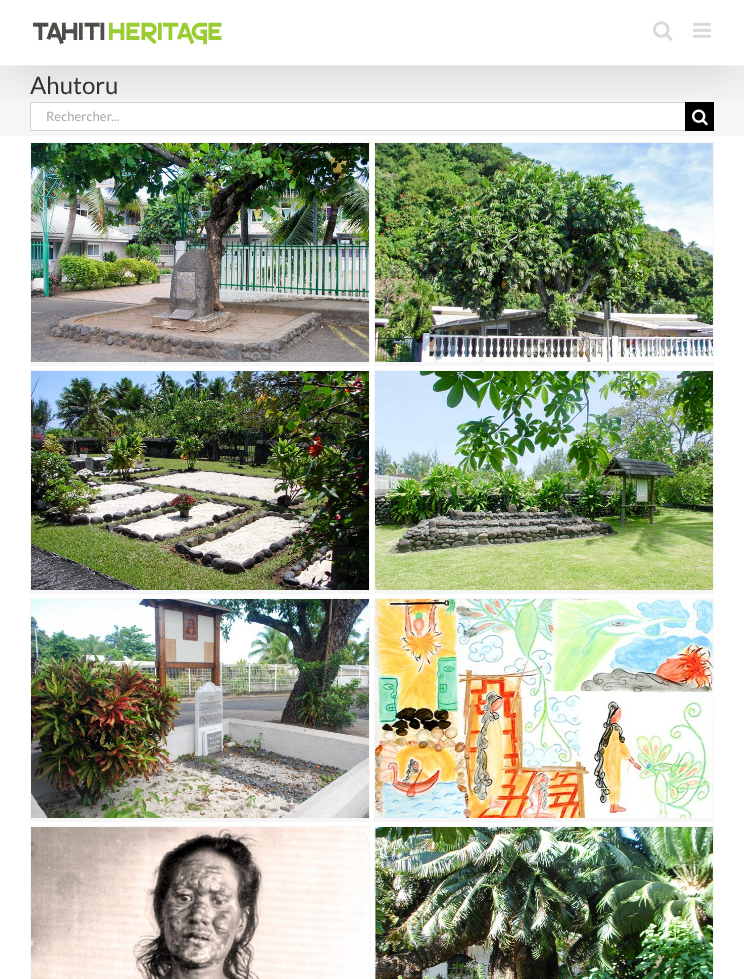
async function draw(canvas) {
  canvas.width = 744
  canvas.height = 979
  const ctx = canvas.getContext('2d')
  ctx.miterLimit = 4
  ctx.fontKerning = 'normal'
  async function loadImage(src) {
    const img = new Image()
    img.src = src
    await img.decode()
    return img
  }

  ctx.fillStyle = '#fff'
  ctx.fillRect(0, 0, 744, 979)
  ctx.fillStyle = '#f6f6f6'
  ctx.fillRect(0, 66, 744, 70)
  ctx.fillStyle = '#fff'
  ctx.fillRect(31, 103, 654, 27)
  ctx.fillStyle = '#d2d2d2'
  ctx.fillRect(30, 102, 655, 1)
  ctx.fillRect(30, 130, 655, 1)
  ctx.fillRect(30, 102, 1, 29)
  ctx.fillStyle = '#000'
  ctx.fillRect(685, 102, 29, 29)
  ctx.drawImage(await loadImage('image3.png'), 692, 109, 16, 17)
  ctx.fillStyle = '#f6f6f6'
  ctx.fillRect(30, 142, 340, 1)
  ctx.fillRect(369, 142, 1, 224)
  ctx.fillRect(30, 363, 340, 3)
  ctx.fillRect(30, 142, 1, 224)
  ctx.drawImage(await loadImage('image4.png'), 31, 143, 338, 219)
  ctx.fillRect(374, 142, 340, 1)
  ctx.fillRect(713, 142, 1, 224)
  ctx.fillRect(374, 363, 340, 3)
  ctx.fillRect(374, 142, 1, 224)
  ctx.drawImage(await loadImage('image5.png'), 375, 143, 338, 219)
  ctx.save()
  ctx.beginPath()
  ctx.rect(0, 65, 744, 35)
  ctx.clip()
  ctx.fillStyle = '#00000024'
  ctx.filter = 'blur(25px)'
  ctx.beginPath()
  ctx.rect(2, 12, 740, 61)
  ctx.fill()
  ctx.filter = 'none'
  ctx.restore()
  ctx.drawImage(await loadImage('image0.png'), 33, 22, 189, 23)
  ctx.drawImage(await loadImage('image1.png'), 653, 21, 20, 20)
  ctx.drawImage(await loadImage('image2.png'), 693, 22, 18, 16)
  ctx.font = '24px Lato'
  ctx.fillStyle = '#333'
  ctx.fillText('Ahutoru', 30, 94)
  ctx.font = '13px Lato'
  ctx.fillStyle = '#aaa9a9'
  ctx.fillText('Rechercher...', 46, 121)
  ctx.fillStyle = '#f6f6f6'
  ctx.fillRect(31, 362, 338, 1)
  ctx.fillRect(375, 362, 338, 1)
  ctx.fillRect(30, 370, 340, 1)
  ctx.fillRect(369, 370, 1, 224)
  ctx.fillRect(30, 591, 340, 3)
  ctx.fillRect(30, 370, 1, 224)
  ctx.fillRect(31, 590, 338, 1)
  ctx.drawImage(await loadImage('image6.png'), 31, 371, 338, 219)
  ctx.fillRect(374, 370, 340, 1)
  ctx.fillRect(713, 370, 1, 224)
  ctx.fillRect(374, 591, 340, 3)
  ctx.fillRect(374, 370, 1, 224)
  ctx.fillRect(375, 590, 338, 1)
  ctx.drawImage(await loadImage('image7.png'), 375, 371, 338, 219)
  ctx.fillRect(30, 598, 340, 1)
  ctx.fillRect(369, 598, 1, 224)
  ctx.fillRect(30, 819, 340, 3)
  ctx.fillRect(30, 598, 1, 224)
  ctx.fillRect(31, 818, 338, 1)
  ctx.drawImage(await loadImage('image8.png'), 31, 599, 338, 219)
  ctx.fillRect(374, 598, 340, 1)
  ctx.fillRect(713, 598, 1, 224)
  ctx.fillRect(374, 819, 340, 3)
  ctx.fillRect(374, 598, 1, 224)
  ctx.fillRect(375, 818, 338, 1)
  ctx.drawImage(await loadImage('image9.png'), 375, 599, 338, 219)
  ctx.fillRect(30, 826, 340, 1)
  ctx.fillRect(369, 826, 1, 153)
  ctx.fillRect(30, 826, 1, 153)
  ctx.drawImage(await loadImage('image10.png'), 31, 827, 338, 152)
  ctx.fillRect(374, 826, 340, 1)
  ctx.fillRect(713, 826, 1, 153)
  ctx.fillRect(374, 826, 1, 153)
  ctx.drawImage(await loadImage('image11.png'), 375, 827, 338, 152)
}

draw(document.querySelector('canvas'))
